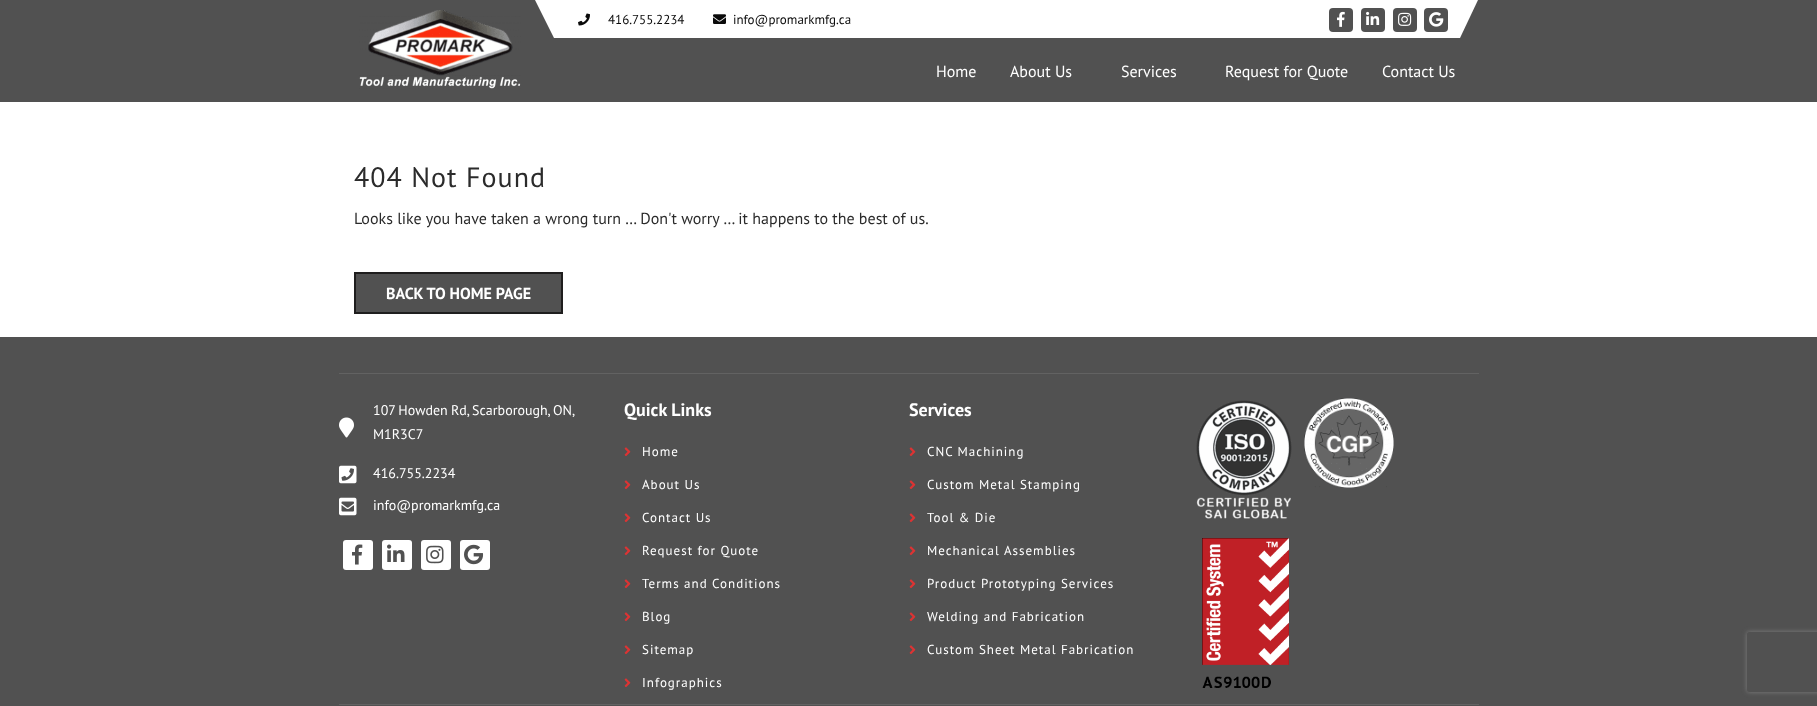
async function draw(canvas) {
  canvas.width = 1817
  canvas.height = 706
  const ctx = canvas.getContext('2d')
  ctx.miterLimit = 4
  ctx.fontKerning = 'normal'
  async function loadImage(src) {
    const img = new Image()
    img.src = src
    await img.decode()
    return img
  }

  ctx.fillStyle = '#fff'
  ctx.fillRect(0, 0, 1817, 706)
  ctx.fillStyle = '#515151'
  ctx.fillRect(0, 0, 1817, 102)
  ctx.fillStyle = '#fff'
  ctx.beginPath()
  ctx.moveTo(535, 0)
  ctx.lineTo(554, 38)
  ctx.lineTo(1460, 38)
  ctx.lineTo(1478, 0)
  ctx.closePath()
  ctx.fill()
  ctx.drawImage(await loadImage('image0.png'), 578, 13, 12, 13)
  ctx.font = '13px PT Sans'
  ctx.fillStyle = '#0a0a0a'
  ctx.fillText('416.755.2234', 608, 24)
  ctx.drawImage(await loadImage('image1.png'), 713, 14, 13, 10)
  ctx.fillText('info@promarkmfg.ca', 733, 24)
  ctx.fillStyle = '#515151'
  ctx.beginPath()
  ctx.roundRect(1329, 8, 24, 24, 4)
  ctx.fill()
  ctx.drawImage(await loadImage('image2.png'), 1337, 11, 8, 16)
  ctx.beginPath()
  ctx.roundRect(1361, 8, 24, 24, 4)
  ctx.fill()
  ctx.drawImage(await loadImage('image3.png'), 1366, 11, 14, 14)
  ctx.beginPath()
  ctx.roundRect(1393, 8, 24, 24, 4)
  ctx.fill()
  ctx.drawImage(await loadImage('image4.png'), 1398, 12, 14, 14)
  ctx.beginPath()
  ctx.roundRect(1424, 8, 24, 24, 4)
  ctx.fill()
  ctx.drawImage(await loadImage('image5.png'), 1429, 12, 15, 15)
  ctx.drawImage(await loadImage('image6.png'), 359, 10, 162, 79)
  ctx.font = '16px PT Sans'
  ctx.fillStyle = '#fff'
  ctx.fillText('Home', 936, 77)
  ctx.fillText('About Us', 1010, 77)
  ctx.fillText('Services', 1121, 77)
  ctx.fillText('Request for Quote', 1225, 77)
  ctx.fillText('Contact Us', 1382, 77)
  ctx.letterSpacing = '1px'
  ctx.font = '28px PT Sans'
  ctx.fillStyle = '#2b2b2b'
  ctx.fillText('404 Not Found', 354, 187)
  ctx.letterSpacing = '0px'
  ctx.font = '16px PT Sans'
  ctx.fillText('Looks like you have taken a wrong turn … Don\'t worry … it happens to the best of us.', 354, 224)
  ctx.fillStyle = '#515151'
  ctx.beginPath()
  ctx.rect(355, 273, 207, 40)
  ctx.fill()
  ctx.strokeStyle = '#1f1e1e'
  ctx.lineWidth = 2
  ctx.stroke()
  ctx.font = 'bold 16px PT Sans'
  ctx.fillStyle = '#fff'
  ctx.fillText('BACK TO HOME PAGE', 386, 299)
  ctx.fillStyle = '#515151'
  ctx.fillRect(0, 337, 1817, 369)
  ctx.fillStyle = '#626262'
  ctx.fillRect(339, 373, 1140, 1)
  ctx.drawImage(await loadImage('image7.png'), 339, 417, 15, 21)
  ctx.wordSpacing = '-0.5px'
  ctx.font = '14px PT Sans'
  ctx.fillStyle = '#fff'
  ctx.fillText('107 Howden Rd, Scarborough, ON,', 373, 415)
  ctx.wordSpacing = '0px'
  ctx.fillText('M1R3C7', 373, 439)
  ctx.drawImage(await loadImage('image8.png'), 339, 465, 18, 19)
  ctx.fillText('416.755.2234', 373, 478)
  ctx.drawImage(await loadImage('image9.png'), 339, 497, 18, 19)
  ctx.fillText('info@promarkmfg.ca', 373, 510)
  ctx.beginPath()
  ctx.roundRect(343, 540, 30, 30, 3)
  ctx.fill()
  ctx.drawImage(await loadImage('image10.png'), 352, 544, 11, 21)
  ctx.beginPath()
  ctx.roundRect(382, 540, 30, 30, 3)
  ctx.fill()
  ctx.drawImage(await loadImage('image11.png'), 387, 544, 18, 18)
  ctx.beginPath()
  ctx.roundRect(421, 540, 30, 30, 3)
  ctx.fill()
  ctx.drawImage(await loadImage('image12.png'), 426, 545, 18, 19)
  ctx.beginPath()
  ctx.roundRect(460, 540, 30, 30, 3)
  ctx.fill()
  ctx.drawImage(await loadImage('image13.png'), 464, 544, 20, 21)
  ctx.font = 'bold 18px PT Sans'
  ctx.fillText('Quick Links', 624, 416)
  ctx.drawImage(await loadImage('image14.png'), 624, 447, 7, 9)
  ctx.letterSpacing = '1px'
  ctx.font = '13px PT Sans'
  ctx.fillText('Home', 642, 456)
  ctx.drawImage(await loadImage('image14.png'), 624, 480, 7, 9)
  ctx.fillText('About Us', 642, 489)
  ctx.drawImage(await loadImage('image14.png'), 624, 513, 7, 9)
  ctx.fillText('Contact Us', 642, 522)
  ctx.drawImage(await loadImage('image14.png'), 624, 546, 7, 9)
  ctx.fillText('Request for Quote', 642, 555)
  ctx.drawImage(await loadImage('image14.png'), 624, 579, 7, 9)
  ctx.fillText('Terms and Conditions', 642, 588)
  ctx.drawImage(await loadImage('image14.png'), 624, 612, 7, 9)
  ctx.fillText('Blog', 642, 621)
  ctx.drawImage(await loadImage('image14.png'), 624, 645, 7, 9)
  ctx.fillText('Sitemap', 642, 654)
  ctx.drawImage(await loadImage('image14.png'), 624, 678, 7, 9)
  ctx.fillText('Infographics', 642, 687)
  ctx.letterSpacing = '0px'
  ctx.font = 'bold 18px PT Sans'
  ctx.fillText('Services', 909, 416)
  ctx.drawImage(await loadImage('image14.png'), 909, 447, 7, 9)
  ctx.letterSpacing = '1px'
  ctx.font = '13px PT Sans'
  ctx.fillText('CNC Machining', 927, 456)
  ctx.drawImage(await loadImage('image14.png'), 909, 480, 7, 9)
  ctx.fillText('Custom Metal Stamping', 927, 489)
  ctx.drawImage(await loadImage('image14.png'), 909, 513, 7, 9)
  ctx.fillText('Tool & Die', 927, 522)
  ctx.drawImage(await loadImage('image14.png'), 909, 546, 7, 9)
  ctx.fillText('Mechanical Assemblies', 927, 555)
  ctx.drawImage(await loadImage('image14.png'), 909, 579, 7, 9)
  ctx.fillText('Product Prototyping Services', 927, 588)
  ctx.drawImage(await loadImage('image14.png'), 909, 612, 7, 9)
  ctx.fillText('Welding and Fabrication', 927, 621)
  ctx.drawImage(await loadImage('image14.png'), 909, 645, 7, 9)
  ctx.fillText('Custom Sheet Metal Fabrication', 927, 654)
  ctx.drawImage(await loadImage('image15.png'), 1196, 400, 96, 119)
  ctx.drawImage(await loadImage('image16.png'), 1304, 398, 90, 90)
  ctx.drawImage(await loadImage('image17.png'), 1202, 538, 87, 150)
  ctx.fillStyle = '#626262'
  ctx.fillRect(339, 704, 1140, 1)
  ctx.save()
  ctx.beginPath()
  ctx.moveTo(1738, 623)
  ctx.lineTo(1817, 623)
  ctx.lineTo(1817, 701)
  ctx.lineTo(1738, 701)
  ctx.closePath()
  ctx.moveTo(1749, 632)
  ctx.lineTo(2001, 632)
  ctx.bezierCurveTo(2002, 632, 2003, 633, 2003, 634)
  ctx.lineTo(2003, 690)
  ctx.bezierCurveTo(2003, 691, 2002, 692, 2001, 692)
  ctx.lineTo(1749, 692)
  ctx.bezierCurveTo(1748, 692, 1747, 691, 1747, 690)
  ctx.lineTo(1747, 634)
  ctx.bezierCurveTo(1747, 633, 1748, 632, 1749, 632)
  ctx.closePath()
  ctx.clip('evenodd')
  ctx.fillStyle = '#808080'
  ctx.filter = 'blur(2.5px)'
  ctx.beginPath()
  ctx.roundRect(1747, 632, 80, 60, 2)
  ctx.fill()
  ctx.filter = 'none'
  ctx.restore()
}

draw(document.querySelector('canvas'))
